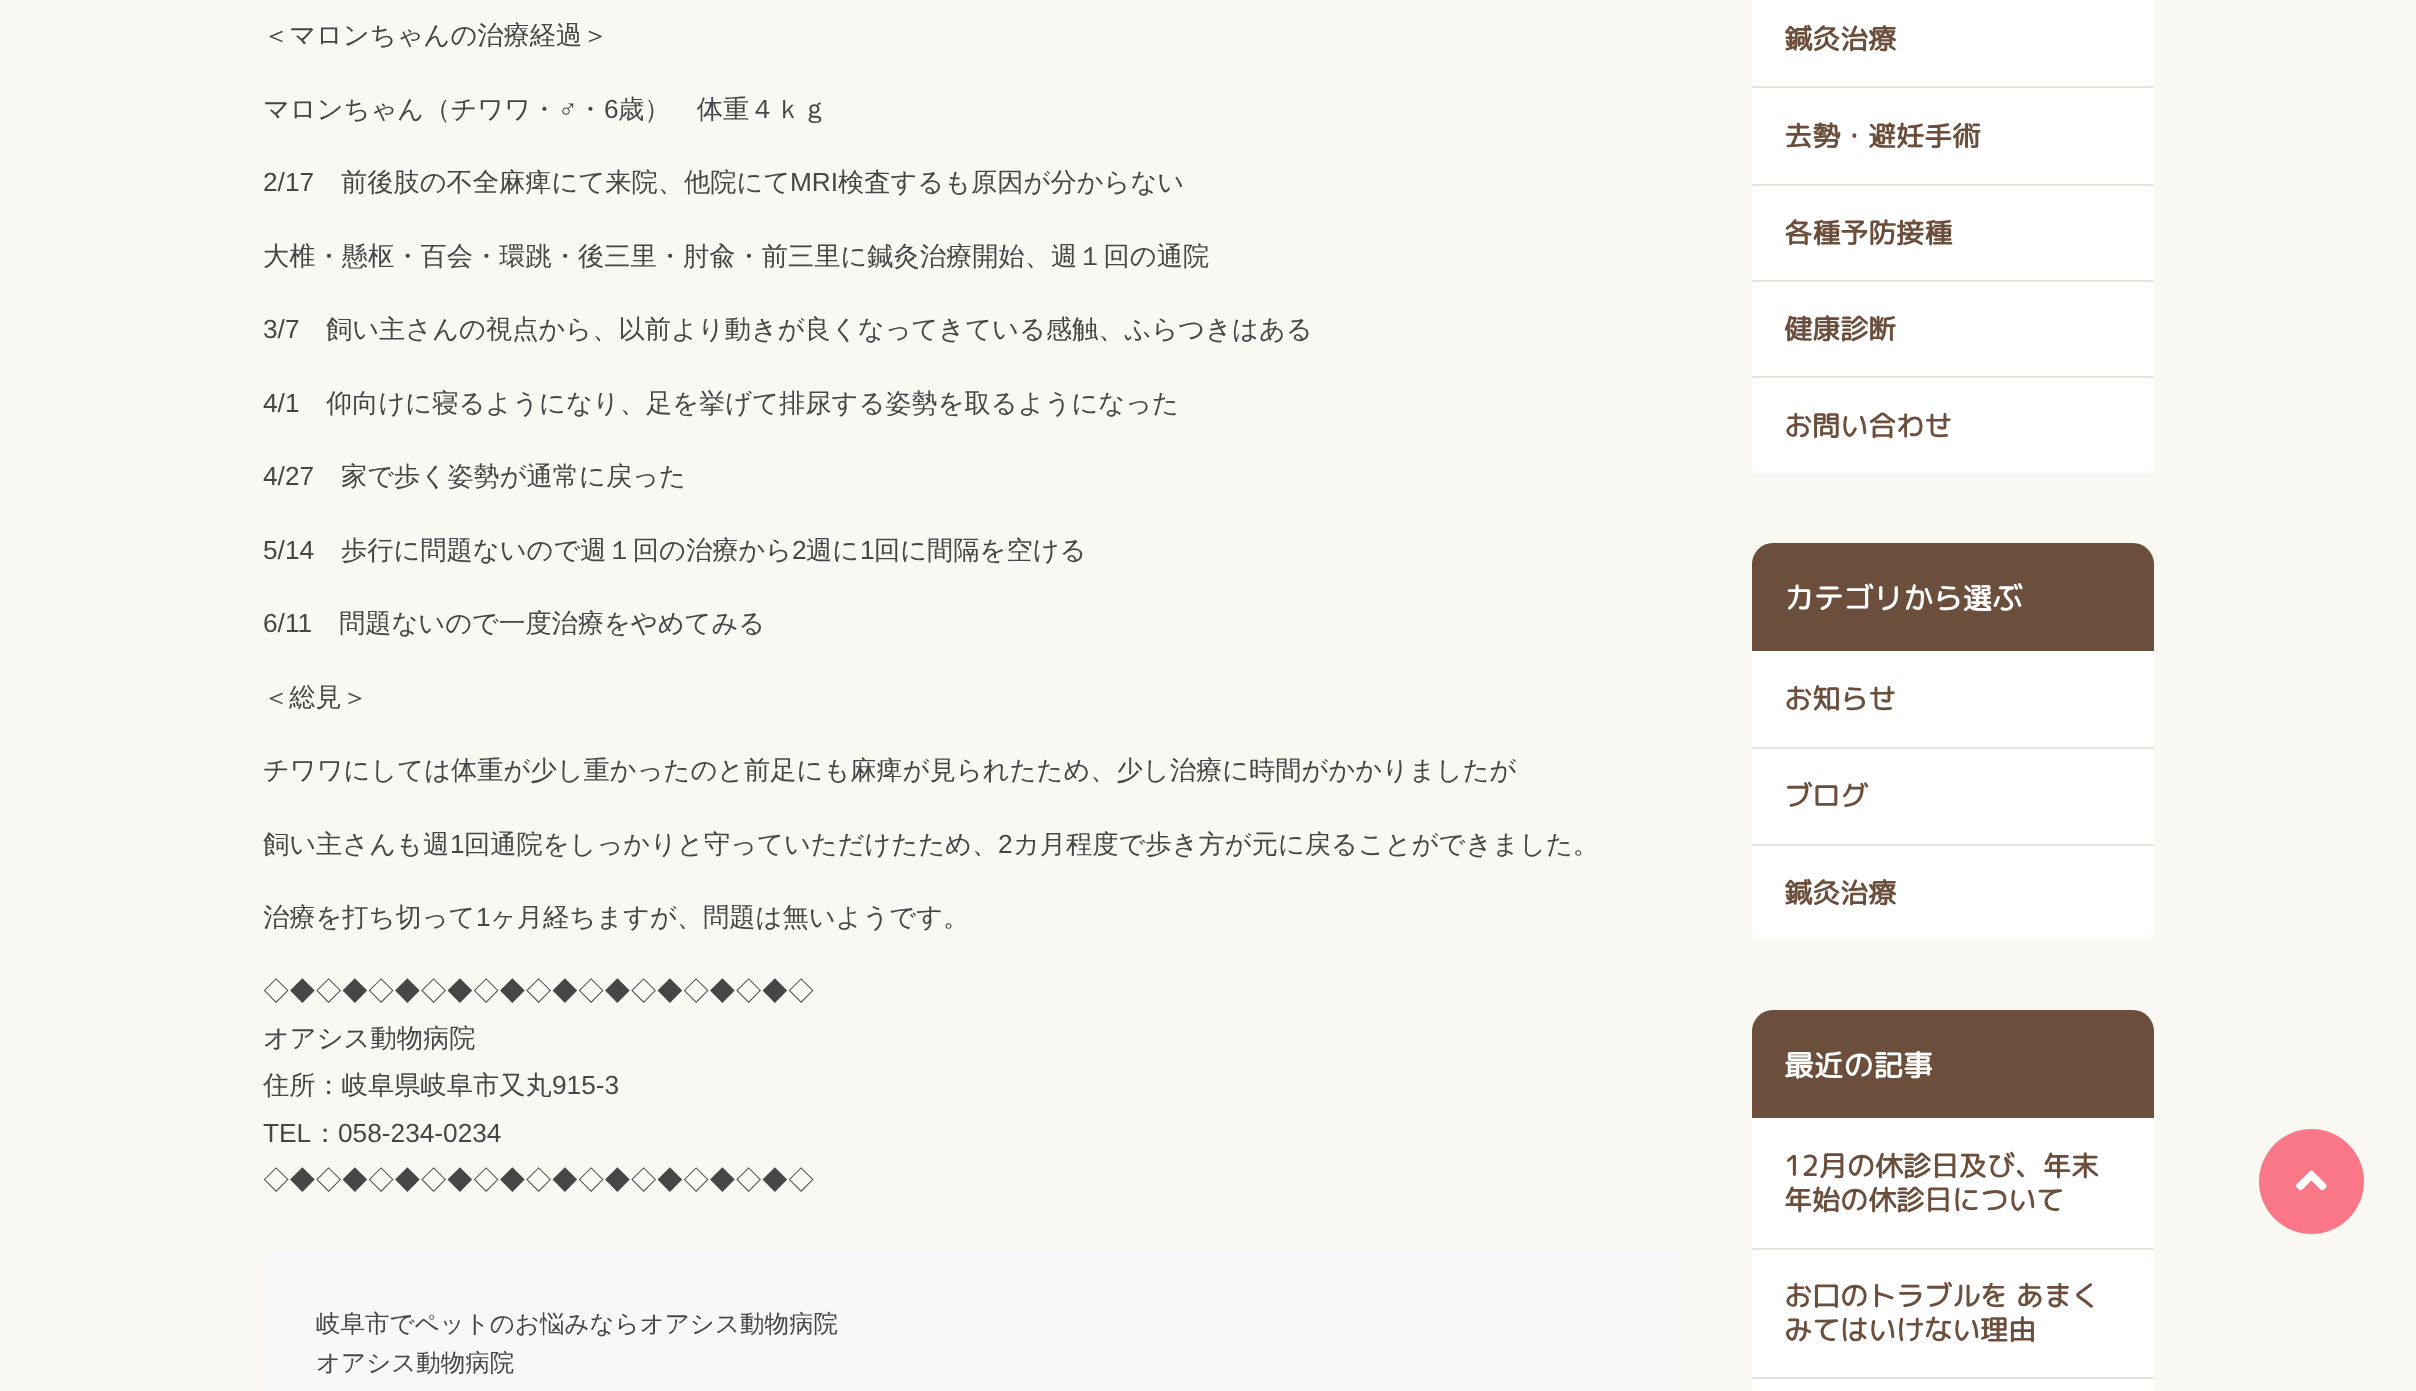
async function draw(canvas) {
  canvas.width = 2416
  canvas.height = 1391
  const ctx = canvas.getContext('2d')
  ctx.miterLimit = 4
  ctx.fontKerning = 'normal'
  async function loadImage(src) {
    const img = new Image()
    img.src = src
    await img.decode()
    return img
  }

  ctx.fillStyle = '#faf8f2'
  ctx.fillRect(0, 0, 2416, 1391)
  ctx.font = '500 26.25px WenQuanYi Zen Hei'
  ctx.fillStyle = '#464646'
  ctx.fillText('＜マロンちゃんの治療経過＞', 263, 44)
  ctx.fillText('マロンちゃん（チワワ・', 263, 118)
  ctx.font = '26.25px Liberation Sans'
  ctx.fillText('♂', 558, 118)
  ctx.font = '500 26.25px WenQuanYi Zen Hei'
  ctx.fillText('・', 577, 118)
  ctx.font = '26.25px Liberation Sans'
  ctx.fillText('6', 604, 118)
  ctx.font = '500 26.25px WenQuanYi Zen Hei'
  ctx.fillText('歳）　体重４ｋｇ', 618, 118)
  ctx.font = '26.25px Liberation Sans'
  ctx.fillText('2/17', 263, 191)
  ctx.font = '500 26.25px WenQuanYi Zen Hei'
  ctx.fillText('前後肢の不全麻痺にて来院、他院にて', 341, 191)
  ctx.font = '26.25px Liberation Sans'
  ctx.fillText('MRI', 790, 191)
  ctx.font = '500 26.25px WenQuanYi Zen Hei'
  ctx.fillText('検査するも原因が分からない', 838, 191)
  ctx.fillText('大椎・懸枢・百会・環跳・後三里・肘兪・前三里に鍼灸治療開始、週１回の通院', 263, 265)
  ctx.font = '26.25px Liberation Sans'
  ctx.fillText('3/7', 263, 338)
  ctx.font = '500 26.25px WenQuanYi Zen Hei'
  ctx.fillText('飼い主さんの視点から、以前より動きが良くなってきている感触、ふらつきはある', 326, 338)
  ctx.font = '26.25px Liberation Sans'
  ctx.fillText('4/1', 263, 412)
  ctx.font = '500 26.25px WenQuanYi Zen Hei'
  ctx.fillText('仰向けに寝るようになり、足を挙げて排尿する姿勢を取るようになった', 326, 412)
  ctx.font = '26.25px Liberation Sans'
  ctx.fillText('4/27', 263, 485)
  ctx.font = '500 26.25px WenQuanYi Zen Hei'
  ctx.fillText('家で歩く姿勢が通常に戻った', 341, 485)
  ctx.font = '26.25px Liberation Sans'
  ctx.fillText('5/14', 263, 559)
  ctx.font = '500 26.25px WenQuanYi Zen Hei'
  ctx.fillText('歩行に問題ないので週１回の治療から', 341, 559)
  ctx.font = '26.25px Liberation Sans'
  ctx.fillText('2', 792, 559)
  ctx.font = '500 26.25px WenQuanYi Zen Hei'
  ctx.fillText('週に', 806, 559)
  ctx.font = '26.25px Liberation Sans'
  ctx.fillText('1', 860, 559)
  ctx.font = '500 26.25px WenQuanYi Zen Hei'
  ctx.fillText('回に間隔を空ける', 874, 559)
  ctx.font = '26.25px Liberation Sans'
  ctx.fillText('6/11', 263, 632)
  ctx.font = '500 26.25px WenQuanYi Zen Hei'
  ctx.fillText('問題ないので一度治療をやめてみる', 339, 632)
  ctx.fillText('＜総見＞', 263, 706)
  ctx.fillText('チワワにしては体重が少し重かったのと前足にも麻痺が見られたため、少し治療に時間がかかりましたが', 263, 779)
  ctx.fillText('飼い主さんも週', 263, 853)
  ctx.font = '26.25px Liberation Sans'
  ctx.fillText('1', 450, 853)
  ctx.font = '500 26.25px WenQuanYi Zen Hei'
  ctx.fillText('回通院をしっかりと守っていただけたため、', 464, 853)
  ctx.font = '26.25px Liberation Sans'
  ctx.fillText('2', 998, 853)
  ctx.font = '500 26.25px WenQuanYi Zen Hei'
  ctx.fillText('カ月程度で歩き方が元に戻ることができました。', 1013, 853)
  ctx.fillText('治療を打ち切って', 263, 926)
  ctx.font = '26.25px Liberation Sans'
  ctx.fillText('1', 476, 926)
  ctx.font = '500 26.25px WenQuanYi Zen Hei'
  ctx.fillText('ヶ月経ちますが、問題は無いようです。', 490, 926)
  ctx.fillText('◇◆◇◆◇◆◇◆◇◆◇◆◇◆◇◆◇◆◇◆◇', 263, 1000)
  ctx.fillText('オアシス動物病院', 263, 1047)
  ctx.fillText('住所：岐阜県岐阜市又丸', 263, 1094)
  ctx.font = '26.25px Liberation Sans'
  ctx.fillText('915-3', 552, 1094)
  ctx.fillText('TEL', 263, 1142)
  ctx.font = '500 26.25px WenQuanYi Zen Hei'
  ctx.fillText('：', 312, 1142)
  ctx.font = '26.25px Liberation Sans'
  ctx.fillText('058-234-0234', 338, 1142)
  ctx.font = '500 26.25px WenQuanYi Zen Hei'
  ctx.fillText('◇◆◇◆◇◆◇◆◇◆◇◆◇◆◇◆◇◆◇◆◇', 263, 1189)
  ctx.fillStyle = '#f8f8f8'
  ctx.fillRect(264, 1251, 1418, 140)
  ctx.font = '500 24.5px WenQuanYi Zen Hei'
  ctx.fillStyle = '#464646'
  ctx.fillText('岐阜市でペットのお悩みならオアシス動物病院', 316, 1332)
  ctx.fillText('オアシス動物病院', 316, 1371)
  ctx.fillStyle = '#fff'
  ctx.fillRect(1752, 0, 402, 86)
  ctx.font = 'bold 28px "Rounded Mplus 1c"'
  ctx.fillStyle = '#6b4e3b'
  ctx.fillText('鍼灸治療', 1784, 49)
  ctx.fillStyle = '#fff'
  ctx.fillRect(1752, 88, 402, 96)
  ctx.fillStyle = '#e5e3dc'
  ctx.fillRect(1752, 86, 402, 2)
  ctx.fillStyle = '#6b4e3b'
  ctx.fillText('去勢・避妊手術', 1784, 146)
  ctx.fillStyle = '#fff'
  ctx.fillRect(1752, 186, 402, 94)
  ctx.fillStyle = '#e5e3dc'
  ctx.fillRect(1752, 184, 402, 2)
  ctx.fillStyle = '#6b4e3b'
  ctx.fillText('各種予防接種', 1784, 243)
  ctx.fillStyle = '#fff'
  ctx.fillRect(1752, 282, 402, 94)
  ctx.fillStyle = '#e5e3dc'
  ctx.fillRect(1752, 280, 402, 2)
  ctx.fillStyle = '#6b4e3b'
  ctx.fillText('健康診断', 1784, 339)
  ctx.fillStyle = '#fff'
  ctx.fillRect(1752, 378, 402, 95)
  ctx.fillStyle = '#e5e3dc'
  ctx.fillRect(1752, 376, 402, 2)
  ctx.fillStyle = '#6b4e3b'
  ctx.fillText('お問い合わせ', 1784, 436)
  ctx.beginPath()
  ctx.roundRect(1752, 543, 402, 108, [21, 21, 0, 0])
  ctx.fill()
  ctx.font = 'bold 29.75px "Rounded Mplus 1c"'
  ctx.fillStyle = '#fff'
  ctx.fillText('カテゴリから選ぶ', 1784, 609)
  ctx.fillRect(1752, 651, 402, 96)
  ctx.font = 'bold 28px "Rounded Mplus 1c"'
  ctx.fillStyle = '#6b4e3b'
  ctx.fillText('お知らせ', 1784, 709)
  ctx.fillStyle = '#fff'
  ctx.fillRect(1752, 749, 402, 95)
  ctx.fillStyle = '#e5e3dc'
  ctx.fillRect(1752, 747, 402, 2)
  ctx.fillStyle = '#6b4e3b'
  ctx.fillText('ブログ', 1784, 806)
  ctx.fillStyle = '#fff'
  ctx.fillRect(1752, 846, 402, 94)
  ctx.fillStyle = '#e5e3dc'
  ctx.fillRect(1752, 844, 402, 2)
  ctx.fillStyle = '#6b4e3b'
  ctx.fillText('鍼灸治療', 1784, 903)
  ctx.beginPath()
  ctx.roundRect(1752, 1010, 402, 108, [21, 21, 0, 0])
  ctx.fill()
  ctx.font = 'bold 29.75px "Rounded Mplus 1c"'
  ctx.fillStyle = '#fff'
  ctx.fillText('最近の記事', 1784, 1076)
  ctx.fillRect(1752, 1118, 402, 130)
  ctx.font = 'bold 28px "Rounded Mplus 1c"'
  ctx.fillStyle = '#6b4e3b'
  ctx.fillText('12月の休診日及び、年末', 1784, 1176)
  ctx.fillText('年始の休診日について', 1784, 1210)
  ctx.fillStyle = '#fff'
  ctx.fillRect(1752, 1250, 402, 127)
  ctx.fillStyle = '#e5e3dc'
  ctx.fillRect(1752, 1248, 402, 2)
  ctx.fillStyle = '#6b4e3b'
  ctx.fillText('お口のトラブルを あまく', 1784, 1306)
  ctx.fillText('みてはいけない理由', 1784, 1340)
  ctx.fillStyle = '#fff'
  ctx.fillRect(1752, 1379, 402, 12)
  ctx.fillStyle = '#e5e3dc'
  ctx.fillRect(1752, 1377, 402, 2)
  ctx.fillStyle = '#f97786'
  ctx.beginPath()
  ctx.arc(2311.5, 1181.5, 52.5, 0, 2 * Math.PI)
  ctx.fill()
  ctx.drawImage(await loadImage('image0.png'), 2296, 1170, 31, 21)
}

draw(document.querySelector('canvas'))
